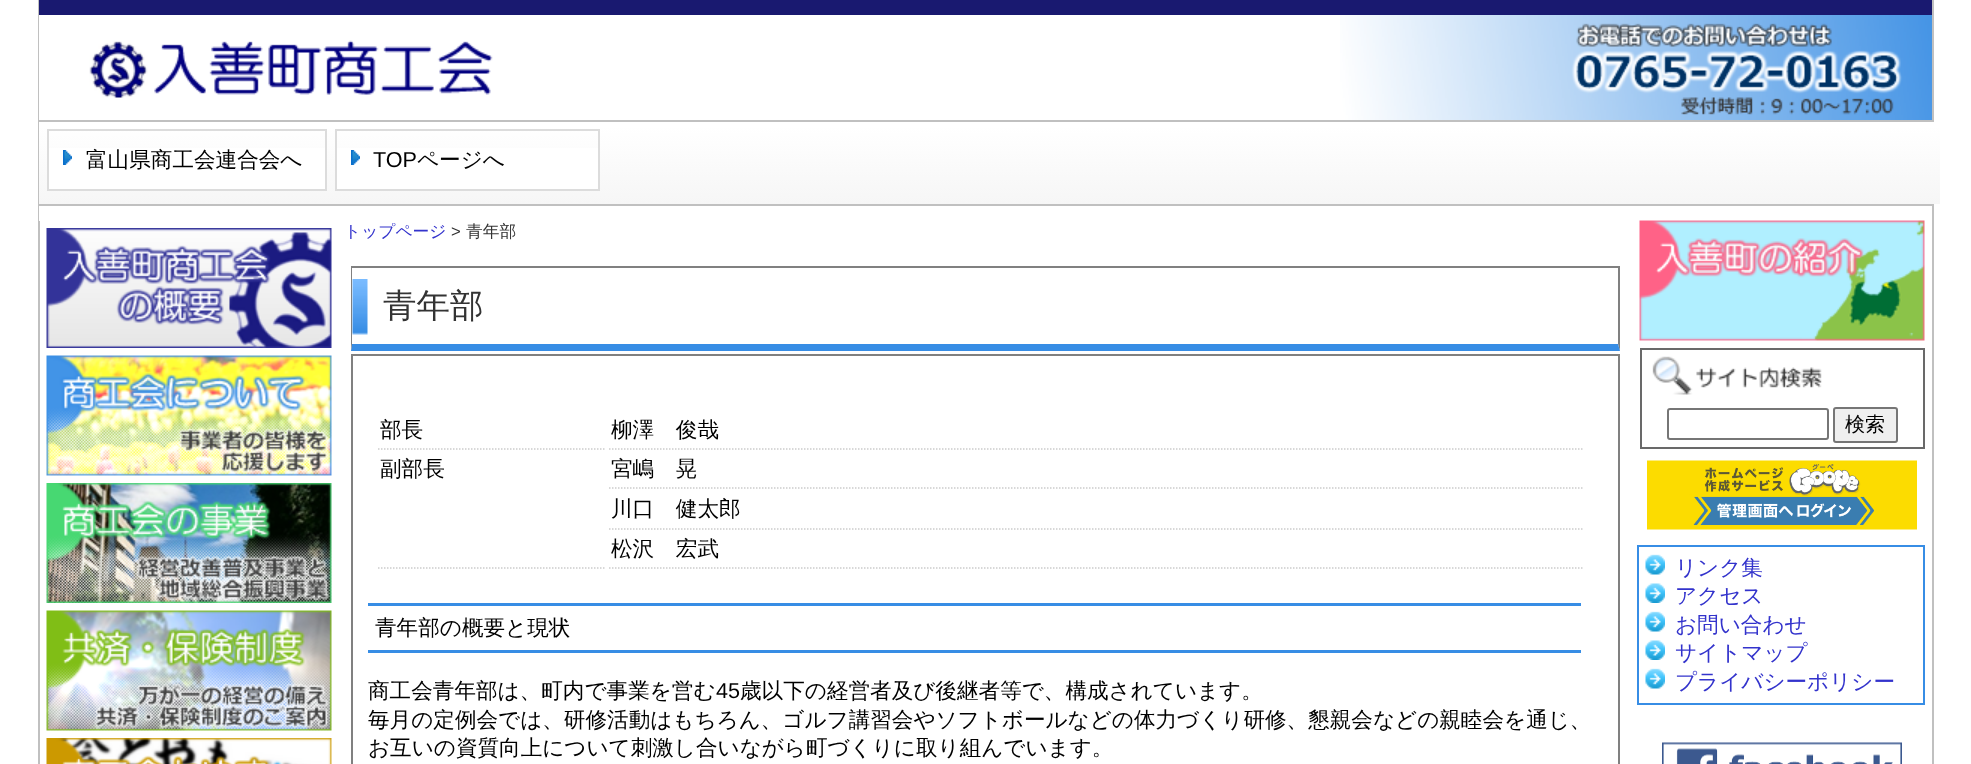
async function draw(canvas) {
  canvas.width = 1971
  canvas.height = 764
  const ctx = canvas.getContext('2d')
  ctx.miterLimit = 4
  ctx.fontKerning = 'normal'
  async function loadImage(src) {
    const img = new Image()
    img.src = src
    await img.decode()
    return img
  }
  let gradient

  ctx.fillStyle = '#fff'
  ctx.fillRect(0, 0, 1971, 764)
  ctx.fillStyle = '#c0c0c0'
  ctx.fillRect(1932, 0, 2, 764)
  ctx.fillRect(38, 0, 2, 764)
  ctx.fillStyle = '#fff'
  ctx.fillRect(39, 15, 1, 105)
  ctx.fillStyle = '#191970'
  ctx.fillRect(39, 0, 1893, 15)
  ctx.drawImage(await loadImage('image0.png'), 89, 40, 404, 58)
  ctx.drawImage(await loadImage('image1.png'), 1340, 15, 592, 105)
  ctx.fillStyle = '#c0c0c0'
  ctx.fillRect(39, 120, 1893, 2)
  gradient = ctx.createLinearGradient(39, 122, 39, 204)
  gradient.addColorStop(0.05, '#fff')
  gradient.addColorStop(1, '#f6f6f6')
  ctx.fillStyle = gradient
  ctx.fillRect(39, 122, 1901, 82)
  ctx.fillStyle = '#fff'
  ctx.fillRect(49, 148, 276, 41)
  ctx.drawImage(await loadImage('image2.png'), 63, 150, 9, 15)
  ctx.strokeStyle = '#dcdcdc'
  ctx.lineWidth = 2
  ctx.strokeRect(48, 130, 278, 60)
  ctx.font = '500 21.6px WenQuanYi Zen Hei'
  ctx.fillStyle = '#000'
  ctx.fillText('富山県商工会連合会へ', 86, 167)
  ctx.fillStyle = '#fff'
  ctx.fillRect(337, 148, 261, 41)
  ctx.drawImage(await loadImage('image3.png'), 351, 150, 9, 15)
  ctx.strokeRect(336, 130, 263, 60)
  ctx.font = '21.6px Liberation Sans'
  ctx.fillStyle = '#000'
  ctx.fillText('TOP', 373, 167)
  ctx.font = '500 21.6px WenQuanYi Zen Hei'
  ctx.fillText('ページへ', 417, 167)
  ctx.fillStyle = '#c0c0c0'
  ctx.fillRect(39, 204, 1893, 2)
  ctx.fillStyle = '#fff'
  ctx.fillRect(39, 206, 1, 15)
  ctx.drawImage(await loadImage('image4.png'), 46, 228, 286, 120)
  ctx.drawImage(await loadImage('image5.png'), 46, 355, 286, 121)
  ctx.drawImage(await loadImage('image6.png'), 46, 483, 286, 120)
  ctx.drawImage(await loadImage('image7.png'), 46, 610, 286, 121)
  ctx.drawImage(await loadImage('image8.png'), 46, 738, 286, 26)
  ctx.font = '500 16.75px WenQuanYi Zen Hei'
  ctx.fillStyle = '#33c'
  ctx.fillText('トップページ', 344, 237)
  ctx.font = '16.75px Liberation Sans'
  ctx.fillStyle = '#333'
  ctx.fillText('>', 451, 237)
  ctx.font = '500 16.75px WenQuanYi Zen Hei'
  ctx.fillText('青年部', 466, 237)
  ctx.drawImage(await loadImage('image9.png'), 352, 279, 16, 56)
  ctx.fillStyle = '#808080'
  ctx.fillRect(351, 266, 1269, 2)
  ctx.beginPath()
  ctx.moveTo(1620, 266)
  ctx.lineTo(1620, 351)
  ctx.lineTo(1618, 344)
  ctx.lineTo(1618, 267)
  ctx.closePath()
  ctx.fill()
  ctx.fillStyle = '#378de5'
  ctx.beginPath()
  ctx.moveTo(1620, 351)
  ctx.lineTo(351, 351)
  ctx.lineTo(352, 344)
  ctx.lineTo(1618, 344)
  ctx.closePath()
  ctx.fill()
  ctx.fillStyle = '#808080'
  ctx.beginPath()
  ctx.moveTo(351, 351)
  ctx.lineTo(351, 266)
  ctx.lineTo(352, 267)
  ctx.lineTo(352, 344)
  ctx.closePath()
  ctx.fill()
  ctx.font = '500 33.5px WenQuanYi Zen Hei'
  ctx.fillStyle = '#333'
  ctx.fillText('青年部', 383, 317)
  ctx.strokeStyle = '#808080'
  ctx.strokeRect(352, 355, 1267, 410)
  ctx.beginPath()
  ctx.moveTo(378, 449)
  ctx.lineTo(606, 449)
  ctx.strokeStyle = '#ccc'
  ctx.lineWidth = 1.5
  ctx.setLineDash([1.5, 1.5])
  ctx.stroke()
  ctx.font = '500 21.6px WenQuanYi Zen Hei'
  ctx.fillStyle = '#000'
  ctx.fillText('部長', 380, 437)
  ctx.beginPath()
  ctx.moveTo(609, 449)
  ctx.lineTo(1582.5, 449)
  ctx.stroke()
  ctx.fillText('柳澤　俊哉', 611, 437)
  ctx.beginPath()
  ctx.moveTo(378, 568)
  ctx.lineTo(606, 568)
  ctx.stroke()
  ctx.fillText('副部長', 380, 476)
  ctx.beginPath()
  ctx.moveTo(609, 488)
  ctx.lineTo(1582.5, 488)
  ctx.stroke()
  ctx.fillText('宮嶋　晃', 611, 476)
  ctx.beginPath()
  ctx.moveTo(609, 529)
  ctx.lineTo(1582.5, 529)
  ctx.stroke()
  ctx.fillText('川口　健太郎', 611, 516)
  ctx.beginPath()
  ctx.moveTo(609, 568)
  ctx.lineTo(1582.5, 568)
  ctx.stroke()
  ctx.fillText('松沢　宏武', 611, 556)
  ctx.fillStyle = '#378de5'
  ctx.fillRect(368, 603, 1213, 3)
  ctx.fillRect(368, 650, 1213, 3)
  ctx.fillStyle = '#000'
  ctx.fillText('青年部の概要と現状', 375, 635)
  ctx.fillText('商工会青年部は、町内で事業を営む', 368, 698)
  ctx.font = '21.6px Liberation Sans'
  ctx.fillText('45', 716, 698)
  ctx.font = '500 21.6px WenQuanYi Zen Hei'
  ctx.fillText('歳以下の経営者及び後継者等で、構成されています。', 740, 698)
  ctx.fillText('毎月の定例会では、研修活動はもちろん、ゴルフ講習会やソフトボールなどの体力づくり研修、懇親会などの親睦会を通じ、', 368, 727)
  ctx.fillText('お互いの資質向上について刺激し合いながら町づくりに取り組んでいます。', 368, 755)
  ctx.drawImage(await loadImage('image10.png'), 1639, 220, 286, 121)
  ctx.drawImage(await loadImage('image11.png'), 1652, 356, 170, 39)
  ctx.strokeStyle = '#696969'
  ctx.lineWidth = 2
  ctx.setLineDash([])
  ctx.strokeRect(1641, 349, 283, 99)
  ctx.beginPath()
  ctx.roundRect(1668, 409, 160, 30, 2)
  ctx.strokeStyle = '#767676'
  ctx.stroke()
  ctx.fillStyle = '#efefef'
  ctx.beginPath()
  ctx.roundRect(1834, 408, 63, 34, 2)
  ctx.fill()
  ctx.stroke()
  ctx.font = '500 20px WenQuanYi Zen Hei'
  ctx.fillStyle = '#000'
  ctx.fillText('検索', 1845, 431)
  ctx.drawImage(await loadImage('image12.png'), 1647, 460, 270, 70)
  ctx.strokeStyle = '#378de5'
  ctx.strokeRect(1638, 546, 286, 158)
  ctx.drawImage(await loadImage('image13.png'), 1645, 554, 20, 21)
  ctx.font = '500 21.6px WenQuanYi Zen Hei'
  ctx.fillStyle = '#33c'
  ctx.fillText('リンク集', 1675, 575)
  ctx.drawImage(await loadImage('image14.png'), 1645, 583, 20, 20)
  ctx.fillText('アクセス', 1675, 603)
  ctx.drawImage(await loadImage('image13.png'), 1645, 611, 20, 21)
  ctx.fillText('お問い合わせ', 1675, 632)
  ctx.drawImage(await loadImage('image14.png'), 1645, 640, 20, 20)
  ctx.fillText('サイトマップ', 1675, 660)
  ctx.drawImage(await loadImage('image13.png'), 1645, 668, 20, 21)
  ctx.fillText('プライバシーポリシー', 1675, 689)
  ctx.drawImage(await loadImage('image15.png'), 1662, 742, 240, 22)
}

draw(document.querySelector('canvas'))
